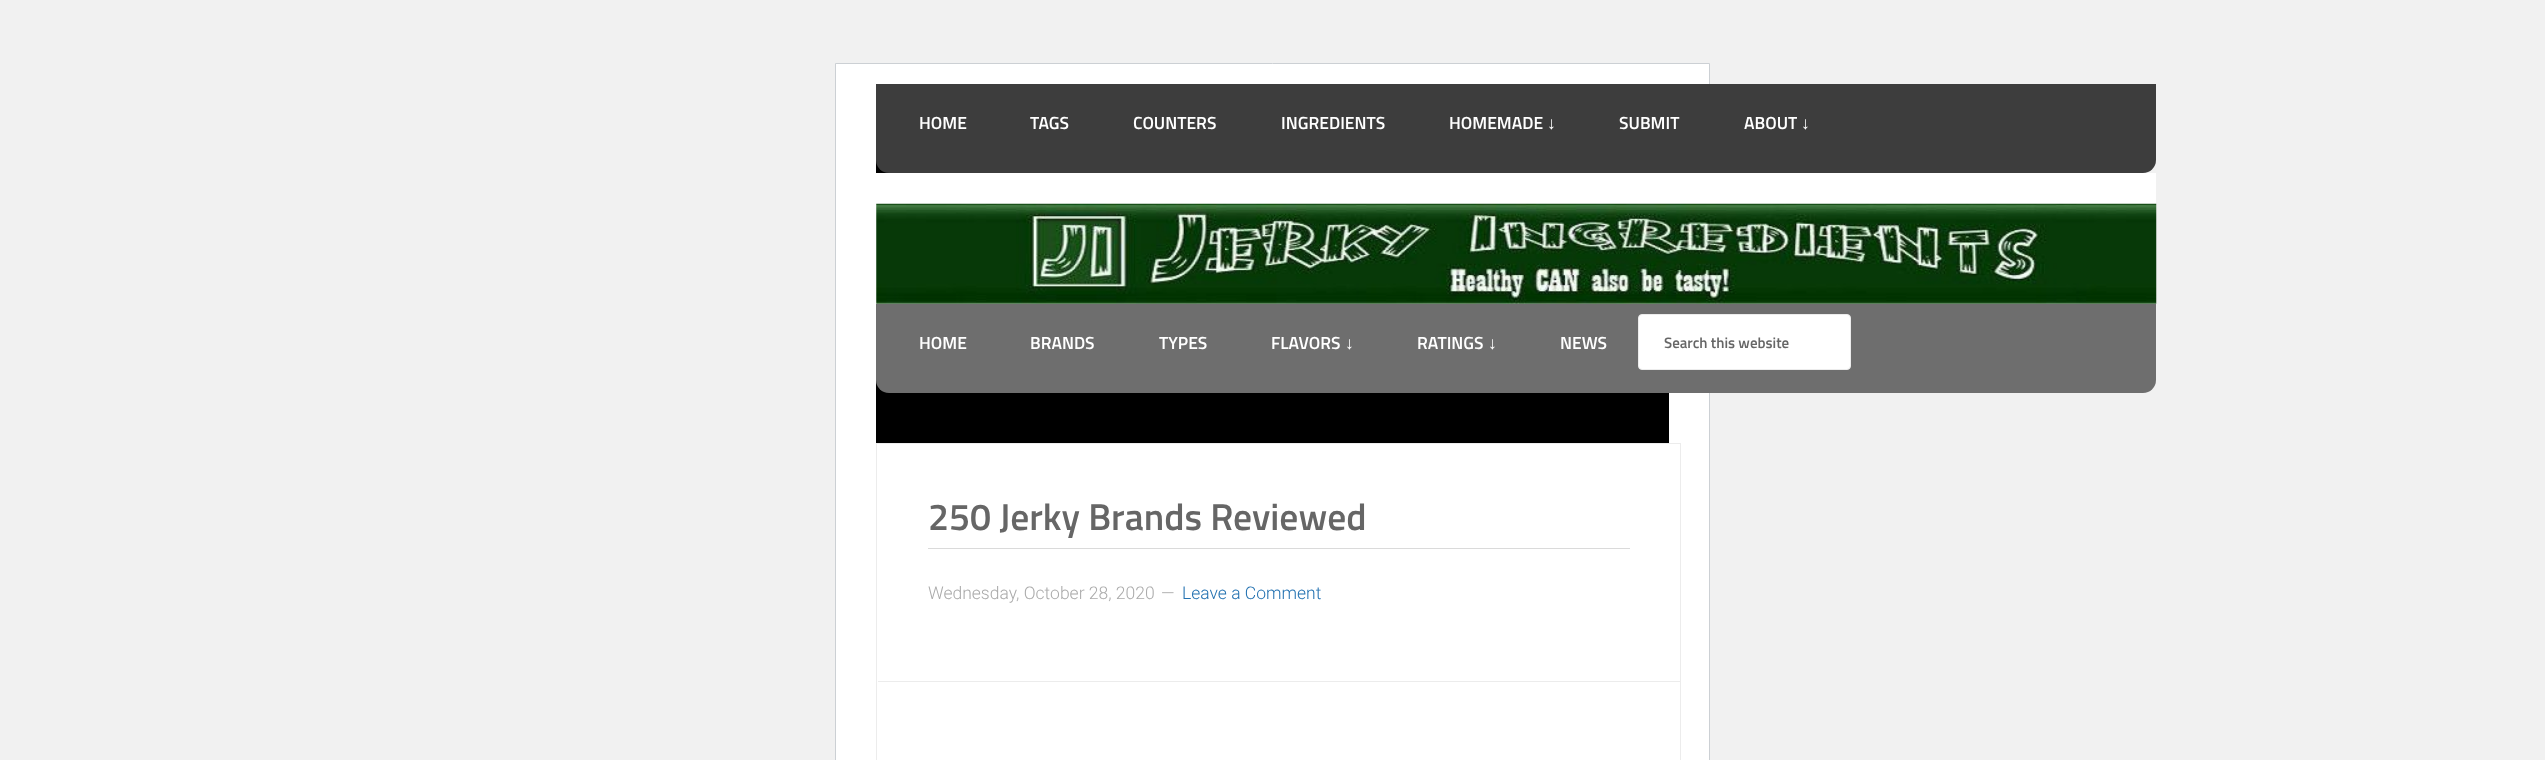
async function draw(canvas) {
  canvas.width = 2545
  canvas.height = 760
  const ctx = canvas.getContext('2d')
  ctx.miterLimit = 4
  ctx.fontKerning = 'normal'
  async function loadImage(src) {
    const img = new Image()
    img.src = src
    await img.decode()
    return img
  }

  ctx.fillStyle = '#f1f1f1'
  ctx.fillRect(0, 0, 2545, 760)
  ctx.fillStyle = '#fff'
  ctx.beginPath()
  ctx.rect(835.5, 63.5, 874, 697)
  ctx.fill()
  ctx.strokeStyle = '#ccd0d4'
  ctx.stroke()
  ctx.fillStyle = '#000'
  ctx.fillRect(876, 160, 793, 283)
  ctx.fillStyle = '#3d3d3d'
  ctx.beginPath()
  ctx.roundRect(876, 84, 1280, 89, [0, 0, 13, 13])
  ctx.fill()
  ctx.font = '600 17.5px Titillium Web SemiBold'
  ctx.fillStyle = '#fff'
  ctx.fillText('HOME', 919, 129)
  ctx.fillText('TAGS', 1030, 129)
  ctx.fillText('COUNTERS', 1133, 129)
  ctx.fillText('INGREDIENTS', 1281, 129)
  ctx.fillText('HOMEMADE', 1449, 129)
  ctx.font = '17.5px Liberation Sans'
  ctx.fillText('↓', 1547, 129)
  ctx.font = '600 17.5px Titillium Web SemiBold'
  ctx.fillText('SUBMIT', 1619, 129)
  ctx.fillText('ABOUT', 1744, 129)
  ctx.font = '17.5px Liberation Sans'
  ctx.fillText('↓', 1801, 129)
  ctx.fillRect(876, 173, 1280, 131)
  ctx.drawImage(await loadImage('image0.png'), 876, 203, 1281, 101)
  ctx.fillStyle = '#6e6e6e'
  ctx.beginPath()
  ctx.roundRect(876, 304, 1280, 89, [0, 0, 13, 13])
  ctx.fill()
  ctx.font = '600 17.5px Titillium Web SemiBold'
  ctx.fillStyle = '#fff'
  ctx.fillText('HOME', 919, 349)
  ctx.fillText('BRANDS', 1030, 349)
  ctx.fillText('TYPES', 1159, 349)
  ctx.fillText('FLAVORS', 1271, 349)
  ctx.font = '17.5px Liberation Sans'
  ctx.fillText('↓', 1345, 349)
  ctx.font = '600 17.5px Titillium Web SemiBold'
  ctx.fillText('RATINGS', 1417, 349)
  ctx.font = '17.5px Liberation Sans'
  ctx.fillText('↓', 1488, 349)
  ctx.font = '600 17.5px Titillium Web SemiBold'
  ctx.fillText('NEWS', 1560, 349)
  ctx.beginPath()
  ctx.roundRect(1638.5, 314.5, 212, 55, 3.5)
  ctx.fill()
  ctx.strokeStyle = '#ececec'
  ctx.stroke()
  ctx.font = '600 15px Titillium Web SemiBold'
  ctx.fillStyle = '#666'
  ctx.fillText('Search this website', 1664, 348)
  ctx.strokeRect(876.5, 443.5, 804, 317)
  ctx.fillStyle = '#ececec'
  ctx.fillRect(878, 681, 802, 1)
  ctx.fillStyle = '#dadada'
  ctx.fillRect(928, 548, 702, 1)
  ctx.font = '600 37.5px Titillium Web SemiBold'
  ctx.fillStyle = '#666'
  ctx.fillText('250 Jerky Brands Reviewed', 928, 530)
  ctx.font = '300 17.5px Roboto'
  ctx.fillStyle = '#aaa'
  ctx.fillText('Wednesday, October 28, 2020', 928, 599)
  ctx.fillText('—', 1161, 599)
  ctx.fillStyle = '#2271b1'
  ctx.fillText('Leave a Comment', 1182, 599)
}

draw(document.querySelector('canvas'))
